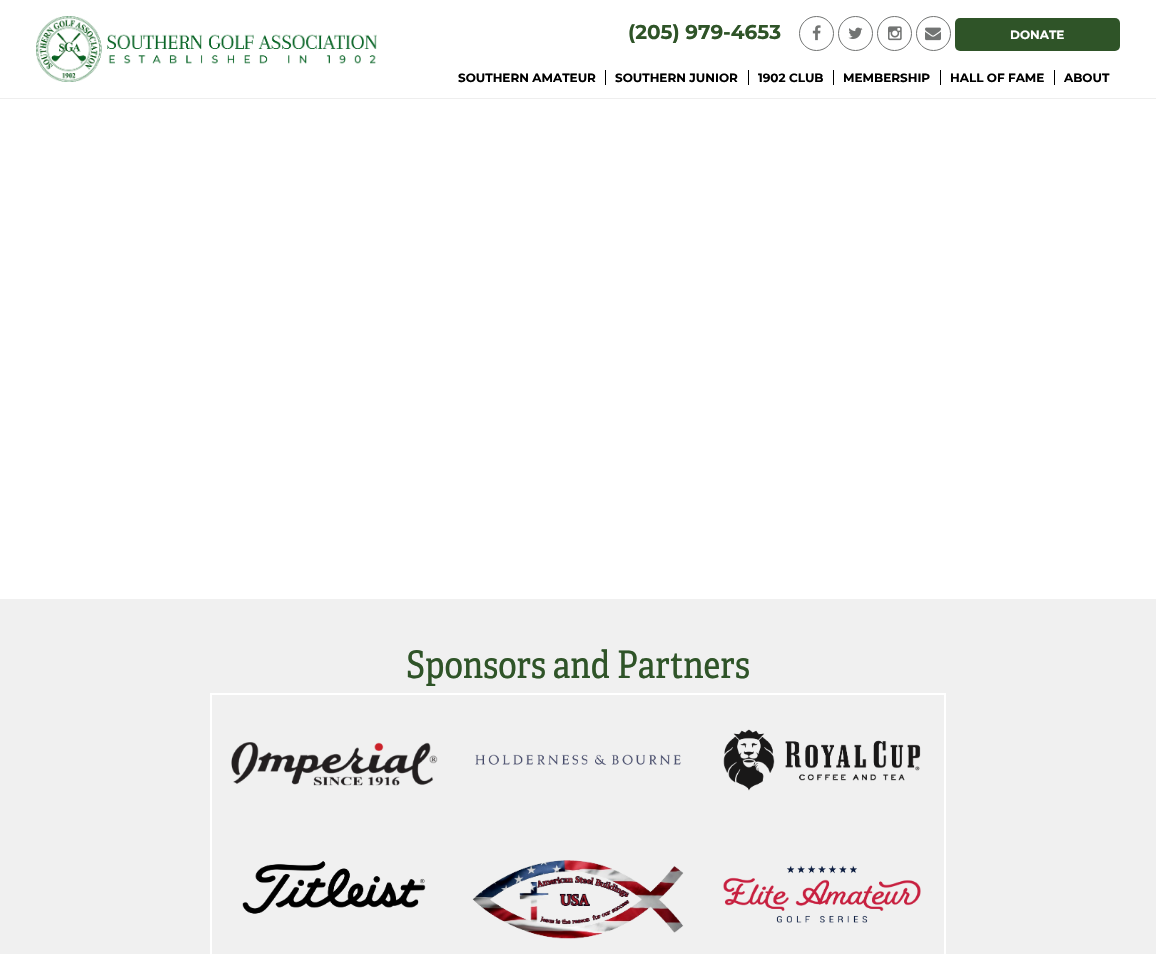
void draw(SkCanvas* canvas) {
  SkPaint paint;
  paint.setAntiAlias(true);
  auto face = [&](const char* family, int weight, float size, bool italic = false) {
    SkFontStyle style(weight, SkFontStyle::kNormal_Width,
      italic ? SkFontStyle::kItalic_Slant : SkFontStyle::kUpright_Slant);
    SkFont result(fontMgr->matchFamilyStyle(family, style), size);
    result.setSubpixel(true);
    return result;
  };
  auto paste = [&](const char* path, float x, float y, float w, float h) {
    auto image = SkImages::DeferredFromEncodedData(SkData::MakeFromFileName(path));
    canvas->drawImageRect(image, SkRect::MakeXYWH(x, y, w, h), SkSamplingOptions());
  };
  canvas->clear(0xffffffff);
  paint.setColor(0xffeeeeee);
  canvas->drawRect(SkRect::MakeXYWH(0, 98, 1156, 1), paint);
  paste("img/1.png", 36, 16, 341, 66);
  paint.setStroke(true);
  paint.setStrokeWidth(1);
  paint.setColor(0xff727473);
  canvas->drawCircle(816.5f, 33.5f, 17, paint);
  paste("img/2.png", 812, 25, 9, 16);
  canvas->drawCircle(855.5f, 33.5f, 17, paint);
  paste("img/3.png", 848, 27, 15, 12);
  canvas->drawCircle(894.5f, 33.5f, 17, paint);
  paste("img/4.png", 888, 26, 14, 15);
  canvas->drawCircle(933.5f, 33.5f, 17, paint);
  paste("img/5.png", 925, 27, 16, 14);
  paint.setStroke(false);
  paint.setColor(0xff2f5428);
  canvas->drawRoundRect(SkRect::MakeXYWH(955, 18, 165, 33), 5, 5, paint);
  {
    const struct { float x, y, w, h; SkColor color; } items[] = {
      {605, 70, 1, 15, 0xff000000},
      {748, 70, 1, 15, 0xff000000},
      {833, 70, 1, 15, 0xff000000},
      {940, 70, 1, 15, 0xff000000},
      {1054, 70, 1, 15, 0xff000000},
      {0, 599, 1156, 355, 0xfff0f0f0},
    };
    for (auto [x, y, w, h, color] : items) {
      paint.setColor(color);
      canvas->drawRect(SkRect::MakeXYWH(x, y, w, h), paint);
    }
  }
  paint.setStroke(true);
  paint.setStrokeWidth(2);
  paint.setColor(0xffffffff);
  canvas->drawRect(SkRect::MakeXYWH(211, 694, 734, 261), paint);
  paste("img/6.png", 231, 742, 207, 44);
  paste("img/7.png", 475, 754, 206, 11);
  paste("img/8.png", 723, 729, 198, 62);
  paste("img/9.png", 242, 861, 184, 53);
  paste("img/10.png", 472, 860, 212, 79);
  paste("img/11.png", 723, 865, 198, 58);
  auto f0 = face("Montserrat", 700, 20);
  paint.setStroke(false);
  paint.setColor(0xff2f5428);
  canvas->drawString("(205) 979-4653", 628, 39, f0, paint);
  auto f1 = face("Montserrat", 700, 12);
  paint.setColor(0xffffffff);
  canvas->drawString("DONATE", 1010, 39, f1, paint);
  paint.setColor(0xff000000);
  {
    const struct { const char* s; float x, y; } items[] = {
      {"SOUTHERN AMATEUR", 458, 82},
      {"SOUTHERN JUNIOR", 615, 82},
      {"1902 CLUB", 758, 82},
      {"MEMBERSHIP", 843, 82},
      {"HALL OF FAME", 950, 82},
      {"ABOUT", 1064, 82},
    };
    for (auto [s, x, y] : items) {
      canvas->drawString(s, x, y, f1, paint);
    }
  }
  auto f2 = face("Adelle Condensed", 400, 38);
  paint.setColor(0xff2f5428);
  canvas->drawString("Sponsors and Partners", 406, 678, f2, paint);
}
